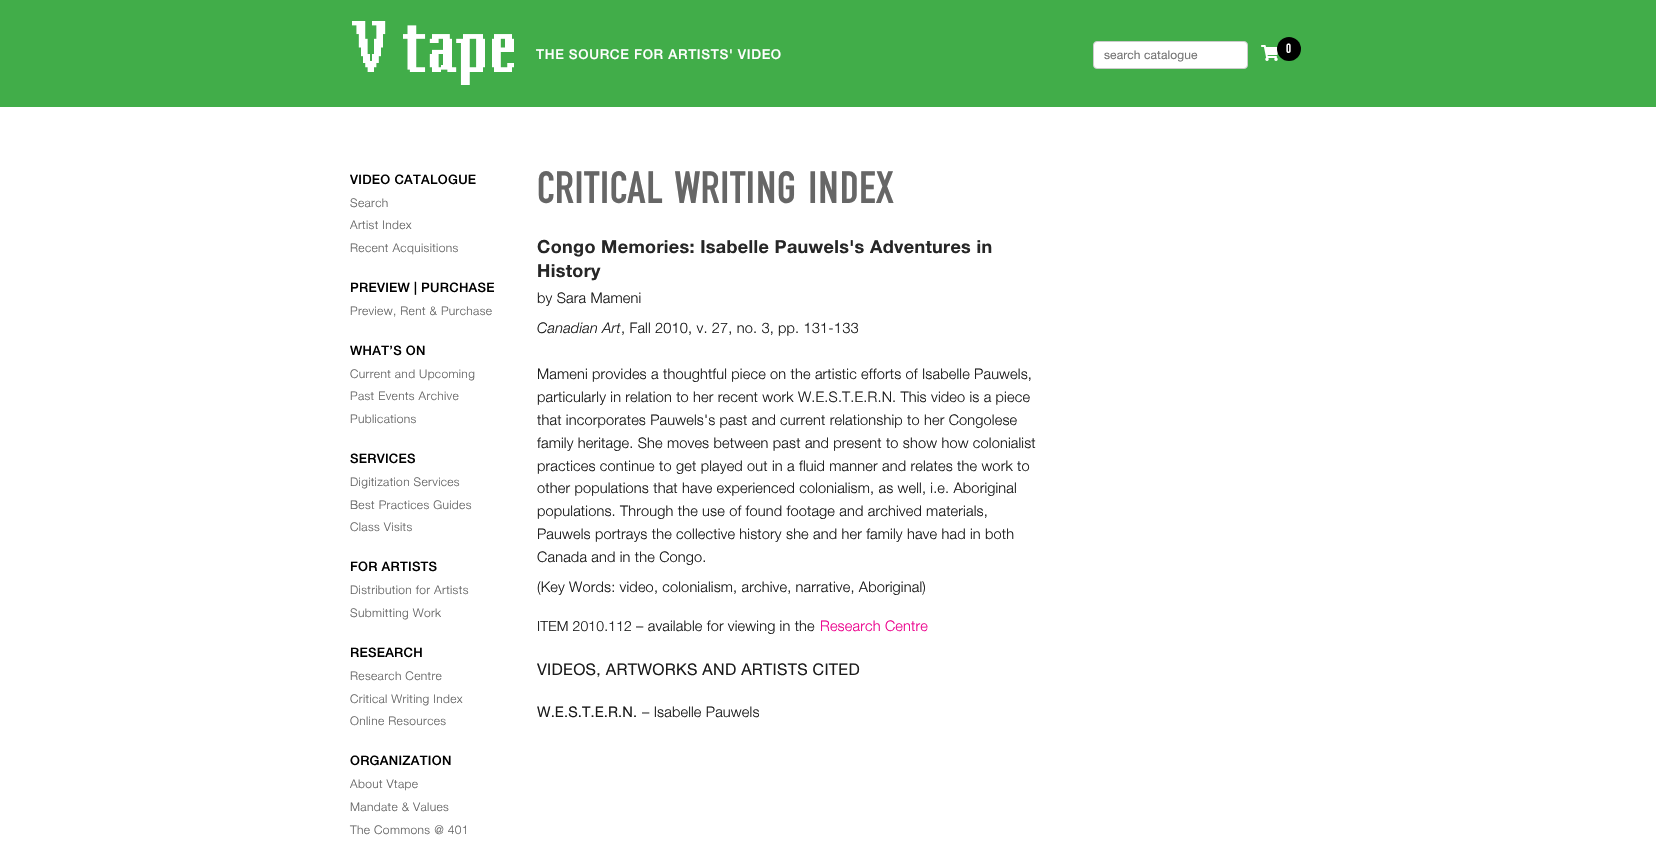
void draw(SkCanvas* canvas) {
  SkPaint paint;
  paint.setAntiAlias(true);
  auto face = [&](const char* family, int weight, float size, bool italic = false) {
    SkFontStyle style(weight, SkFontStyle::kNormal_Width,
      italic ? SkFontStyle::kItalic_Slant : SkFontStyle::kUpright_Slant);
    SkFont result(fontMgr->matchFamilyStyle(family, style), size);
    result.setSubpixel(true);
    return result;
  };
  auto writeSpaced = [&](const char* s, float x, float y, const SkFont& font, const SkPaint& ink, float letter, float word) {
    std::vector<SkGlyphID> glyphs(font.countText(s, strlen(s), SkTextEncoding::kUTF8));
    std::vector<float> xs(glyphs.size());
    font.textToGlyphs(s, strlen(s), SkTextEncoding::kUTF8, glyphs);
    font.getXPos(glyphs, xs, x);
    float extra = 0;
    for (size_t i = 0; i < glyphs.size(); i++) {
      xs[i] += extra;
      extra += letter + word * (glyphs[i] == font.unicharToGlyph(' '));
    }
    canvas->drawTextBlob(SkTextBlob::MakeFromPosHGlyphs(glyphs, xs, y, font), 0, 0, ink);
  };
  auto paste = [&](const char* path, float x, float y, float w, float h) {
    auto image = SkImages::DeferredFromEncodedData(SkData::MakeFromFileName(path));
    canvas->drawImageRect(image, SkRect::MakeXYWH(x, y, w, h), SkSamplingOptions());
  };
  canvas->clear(0xffffffff);
  paint.setColor(0xff41ad49);
  canvas->drawRect(SkRect::MakeXYWH(0, 0, 1656, 107), paint);
  paste("img/1.png", 352, 21, 162, 64);
  paste("img/2.png", 1261, 45, 17, 16);
  paint.setColor(0xff000000);
  canvas->drawCircle(1289, 49, 12, paint);
  paint.setColor(0xffffffff);
  canvas->drawRoundRect(SkRect::MakeXYWH(1093.5f, 41.5f, 154, 27), 3.5f, 3.5f, paint);
  paint.setStroke(true);
  paint.setStrokeWidth(1);
  paint.setColor(0xffcccccc);
  canvas->drawRoundRect(SkRect::MakeXYWH(1093.5f, 41.5f, 154, 27), 3.5f, 3.5f, paint);
  auto f0 = face("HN", 500, 13.5f);
  paint.setStroke(false);
  paint.setColor(0xffffffff);
  writeSpaced("THE SOURCE FOR ARTISTS' VIDEO", 536, 59, f0, paint, 0.7f, 0);
  auto f1 = face("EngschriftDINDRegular", 400, 13);
  writeSpaced("0", 1286, 53, f1, paint, 0.15f, 0);
  auto f2 = face("HN", 400, 12);
  paint.setColor(0xff757575);
  writeSpaced("search catalogue", 1104, 59, f2, paint, 0.1f, 0);
  auto f3 = face("HN", 500, 13);
  paint.setColor(0xff000000);
  writeSpaced("VIDEO CATALOGUE", 350, 184, f3, paint, 0.3f, 0);
  auto f4 = face("HN", 300, 12);
  paint.setColor(0xff666666);
  {
    const struct { const char* s; float x, y; } items[] = {
      {"Search", 350, 207},
      {"Artist Index", 350, 229},
      {"Recent Acquisitions", 350, 252},
    };
    for (auto [s, x, y] : items) {
      writeSpaced(s, x, y, f4, paint, 0.35f, 0);
    }
  }
  paint.setColor(0xff000000);
  writeSpaced("PREVIEW | PURCHASE", 350, 292, f3, paint, 0.3f, 0);
  paint.setColor(0xff666666);
  writeSpaced("Preview, Rent & Purchase", 350, 315, f4, paint, 0.35f, 0);
  paint.setColor(0xff000000);
  writeSpaced("WHAT’S ON", 350, 355, f3, paint, 0.3f, 0);
  paint.setColor(0xff666666);
  {
    const struct { const char* s; float x, y; } items[] = {
      {"Current and Upcoming", 350, 378},
      {"Past Events Archive", 350, 400},
      {"Publications", 350, 423},
    };
    for (auto [s, x, y] : items) {
      writeSpaced(s, x, y, f4, paint, 0.35f, 0);
    }
  }
  paint.setColor(0xff000000);
  writeSpaced("SERVICES", 350, 463, f3, paint, 0.3f, 0);
  paint.setColor(0xff666666);
  {
    const struct { const char* s; float x, y; } items[] = {
      {"Digitization Services", 350, 486},
      {"Best Practices Guides", 350, 509},
      {"Class Visits", 350, 531},
    };
    for (auto [s, x, y] : items) {
      writeSpaced(s, x, y, f4, paint, 0.35f, 0);
    }
  }
  paint.setColor(0xff000000);
  writeSpaced("FOR ARTISTS", 350, 571, f3, paint, 0.3f, 0);
  paint.setColor(0xff666666);
  writeSpaced("Distribution for Artists", 350, 594, f4, paint, 0.35f, 0);
  writeSpaced("Submitting Work", 350, 617, f4, paint, 0.35f, 0);
  paint.setColor(0xff000000);
  writeSpaced("RESEARCH", 350, 657, f3, paint, 0.3f, 0);
  paint.setColor(0xff666666);
  {
    const struct { const char* s; float x, y; } items[] = {
      {"Research Centre", 350, 680},
      {"Critical Writing Index", 350, 703},
      {"Online Resources", 350, 725},
    };
    for (auto [s, x, y] : items) {
      writeSpaced(s, x, y, f4, paint, 0.35f, 0);
    }
  }
  paint.setColor(0xff000000);
  writeSpaced("ORGANIZATION", 350, 765, f3, paint, 0.3f, 0);
  paint.setColor(0xff666666);
  {
    const struct { const char* s; float x, y; } items[] = {
      {"About Vtape", 350, 788},
      {"Mandate & Values", 350, 811},
      {"The Commons @ 401", 350, 834},
    };
    for (auto [s, x, y] : items) {
      writeSpaced(s, x, y, f4, paint, 0.35f, 0);
    }
  }
  auto f5 = face("EngschriftDINDRegular", 400, 44);
  {
    const struct { const char* s; float x, y; } items[] = {
      {"CRITICAL", 537, 203},
      {"WRITING", 675, 203},
      {"INDEX", 808, 203},
    };
    for (auto [s, x, y] : items) {
      writeSpaced(s, x, y, f5, paint, 0.5f, 0);
    }
  }
  auto f6 = face("HN", 700, 18);
  paint.setColor(0xff262626);
  writeSpaced("Congo Memories: Isabelle Pauwels's Adventures in", 537, 253, f6, paint, 0.35f, 0);
  writeSpaced("History", 537, 277, f6, paint, 0.35f, 0);
  auto f7 = face("HN", 300, 14.6f);
  paint.setColor(0xff1b1b1b);
  writeSpaced("by Sara Mameni", 537, 303, f7, paint, 0.15f, 0);
  auto f8 = face("HN", 300, 14.6f, true);
  writeSpaced("Canadian Art", 537, 333, f8, paint, 0.15f, 0);
  {
    const struct { const char* s; float x, y; } items[] = {
      {", Fall 2010, v. 27, no. 3, pp. 131-133", 621, 333},
      {"Mameni provides a thoughtful piece on the artistic efforts of Isabelle Pauwels,", 537, 379},
      {"particularly in relation to her recent work W.E.S.T.E.R.N. This video is a piece", 537, 402},
      {"that incorporates Pauwels's past and current relationship to her Congolese", 537, 425},
      {"family heritage. She moves between past and present to show how colonialist", 537, 448},
      {"practices continue to get played out in a fluid manner and relates the work to", 537, 471},
      {"other populations that have experienced colonialism, as well, i.e. Aboriginal", 537, 493},
      {"populations. Through the use of found footage and archived materials,", 537, 516},
      {"Pauwels portrays the collective history she and her family have had in both", 537, 539},
      {"Canada and in the Congo.", 537, 562},
      {"(Key Words: video, colonialism, archive, narrative, Aboriginal)", 537, 592},
    };
    for (auto [s, x, y] : items) {
      writeSpaced(s, x, y, f7, paint, 0.15f, 0);
    }
  }
  auto f9 = face("HN", 300, 14);
  writeSpaced("ITEM 2010.112", 537, 631, f9, paint, 0.15f, 0);
  writeSpaced("– available for viewing in the", 636, 631, f7, paint, 0.15f, 0);
  paint.setColor(0xffec008c);
  writeSpaced("Research Centre", 820, 631, f7, paint, 0.15f, 0);
  auto f10 = face("HN", 400, 16);
  paint.setColor(0xff1b1b1b);
  writeSpaced("VIDEOS, ARTWORKS AND ARTISTS CITED", 537, 675, f10, paint, 0.3f, 0);
  auto f11 = face("HN", 400, 14.6f);
  writeSpaced("W.E.S.T.E.R.N.", 537, 717, f11, paint, 0.15f, 0);
  writeSpaced("– Isabelle Pauwels", 642, 717, f7, paint, 0.15f, 0);
}
